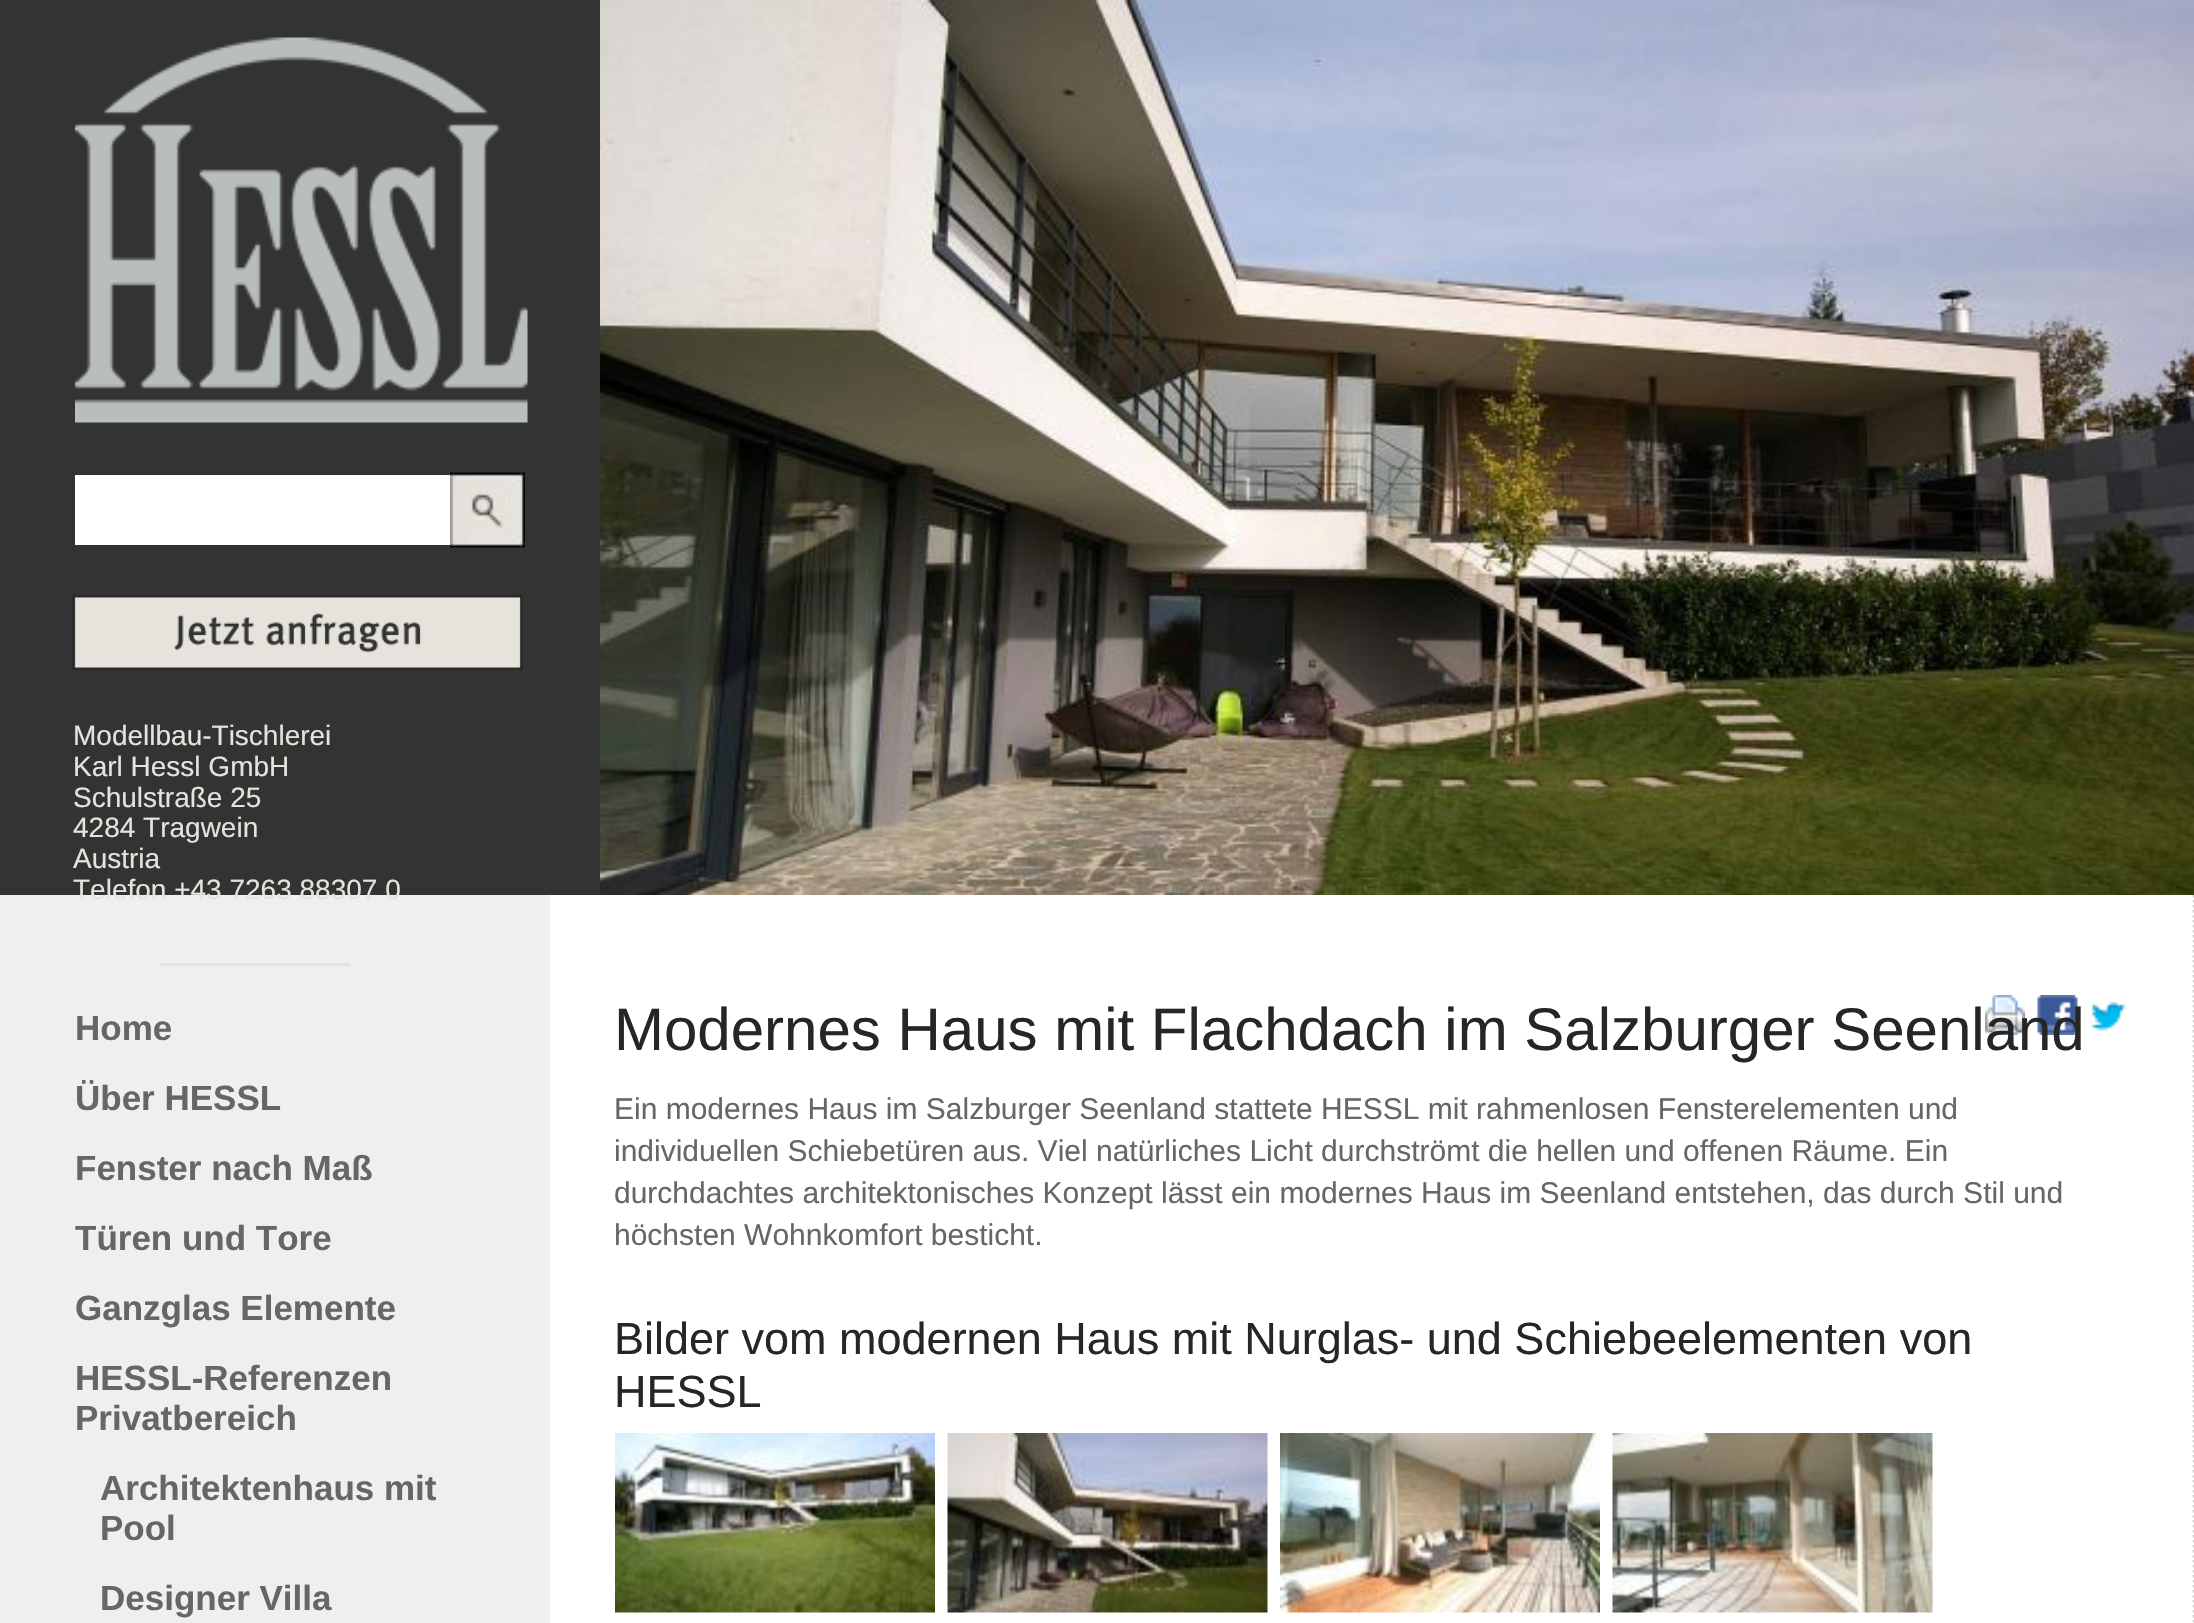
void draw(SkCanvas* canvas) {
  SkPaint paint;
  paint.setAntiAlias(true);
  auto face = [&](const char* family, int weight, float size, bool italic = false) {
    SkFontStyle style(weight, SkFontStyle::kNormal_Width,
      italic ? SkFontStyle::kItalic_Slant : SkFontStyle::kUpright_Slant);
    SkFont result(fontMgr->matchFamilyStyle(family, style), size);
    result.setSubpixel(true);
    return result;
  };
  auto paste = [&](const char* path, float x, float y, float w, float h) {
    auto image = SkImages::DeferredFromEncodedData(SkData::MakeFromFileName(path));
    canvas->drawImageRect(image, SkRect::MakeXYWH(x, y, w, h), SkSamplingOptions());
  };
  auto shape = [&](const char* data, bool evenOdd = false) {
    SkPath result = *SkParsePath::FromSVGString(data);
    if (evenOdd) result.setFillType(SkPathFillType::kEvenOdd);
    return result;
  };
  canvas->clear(0xff333333);
  paste("img/1.png", 75, 37, 453, 386);
  paste("img/2.png", 600, 0, 1594, 895);
  paint.setColor(0xffffffff);
  canvas->drawRect(SkRect::MakeXYWH(75, 475, 375, 70), paint);
  paste("img/3.png", 450, 472, 75, 76);
  paste("img/4.png", 72, 595, 451, 75);
  paste("img/5.png", 0, 895, 550, 728);
  paint.setColor(0xffe5e3db);
  canvas->drawRect(SkRect::MakeXYWH(160, 963, 190, 3), paint);
  paint.setColor(0xffffffff);
  canvas->drawRect(SkRect::MakeXYWH(550, 895, 1644, 728), paint);
  paint.setStroke(true);
  paint.setStrokeWidth(2.5f);
  paint.setColor(0xffcccccc);
  paint.setPathEffect(SkDashPathEffect::Make({{2.5f, 2.5f}}, 0));
  canvas->drawPath(shape("M2194 895V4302.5"), paint);
  paint.setPathEffect(nullptr);
  paste("img/6.png", 1985, 995, 40, 40);
  paste("img/7.png", 2037, 995, 41, 40);
  paste("img/8.png", 2091, 1001, 35, 30);
  paste("img/9.png", 615, 1433, 320, 180);
  paste("img/10.png", 947, 1433, 321, 180);
  paste("img/11.png", 1280, 1433, 320, 180);
  paste("img/12.png", 1612, 1433, 321, 180);
  auto f0 = face("Liberation Sans", 400, 28);
  paint.setStroke(false);
  paint.setColor(0xffe5e3db);
  {
    const struct { const char* s; float x, y; } items[] = {
      {"Modellbau-Tischlerei", 73, 745},
      {"Karl Hessl GmbH", 73, 776},
      {"Schulstraße 25", 73, 807},
      {"4284 Tragwein", 73, 837},
      {"Austria", 73, 868},
      {"Telefon +43 7263 88307 0", 73, 899},
    };
    for (auto [s, x, y] : items) {
      canvas->drawString(s, x, y, f0, paint);
    }
  }
  auto f1 = face("Liberation Sans", 700, 35);
  paint.setColor(0xff666666);
  {
    const struct { const char* s; float x, y; } items[] = {
      {"Home", 75, 1040},
      {"Über HESSL", 75, 1110},
      {"Fenster nach Maß", 75, 1180},
      {"Türen und Tore", 75, 1250},
      {"Ganzglas Elemente", 75, 1320},
      {"HESSL-Referenzen", 75, 1390},
      {"Privatbereich", 75, 1430},
      {"Architektenhaus mit", 100, 1500},
      {"Pool", 100, 1540},
      {"Designer Villa", 100, 1610},
    };
    for (auto [s, x, y] : items) {
      canvas->drawString(s, x, y, f1, paint);
    }
  }
  auto f2 = face("Liberation Sans", 400, 60);
  paint.setColor(0xff262626);
  canvas->drawString("Modernes Haus mit Flachdach im Salzburger Seenland", 614, 1050, f2, paint);
  auto f3 = face("Liberation Sans", 400, 30);
  paint.setColor(0xff666666);
  {
    const struct { const char* s; float x, y; } items[] = {
      {"Ein modernes Haus im Salzburger Seenland stattete HESSL mit rahmenlosen Fensterelementen und", 614, 1119},
      {"individuellen Schiebetüren aus. Viel natürliches Licht durchströmt die hellen und offenen Räume. Ein", 614, 1161},
      {"durchdachtes architektonisches Konzept lässt ein modernes Haus im Seenland entstehen, das durch Stil und", 614, 1203},
      {"höchsten Wohnkomfort besticht.", 614, 1245},
    };
    for (auto [s, x, y] : items) {
      canvas->drawString(s, x, y, f3, paint);
    }
  }
  auto f4 = face("Liberation Sans", 400, 45);
  paint.setColor(0xff262626);
  canvas->drawString("Bilder vom modernen Haus mit Nurglas- und Schiebeelementen von", 614, 1354, f4, paint);
  canvas->drawString("HESSL", 614, 1407, f4, paint);
}
